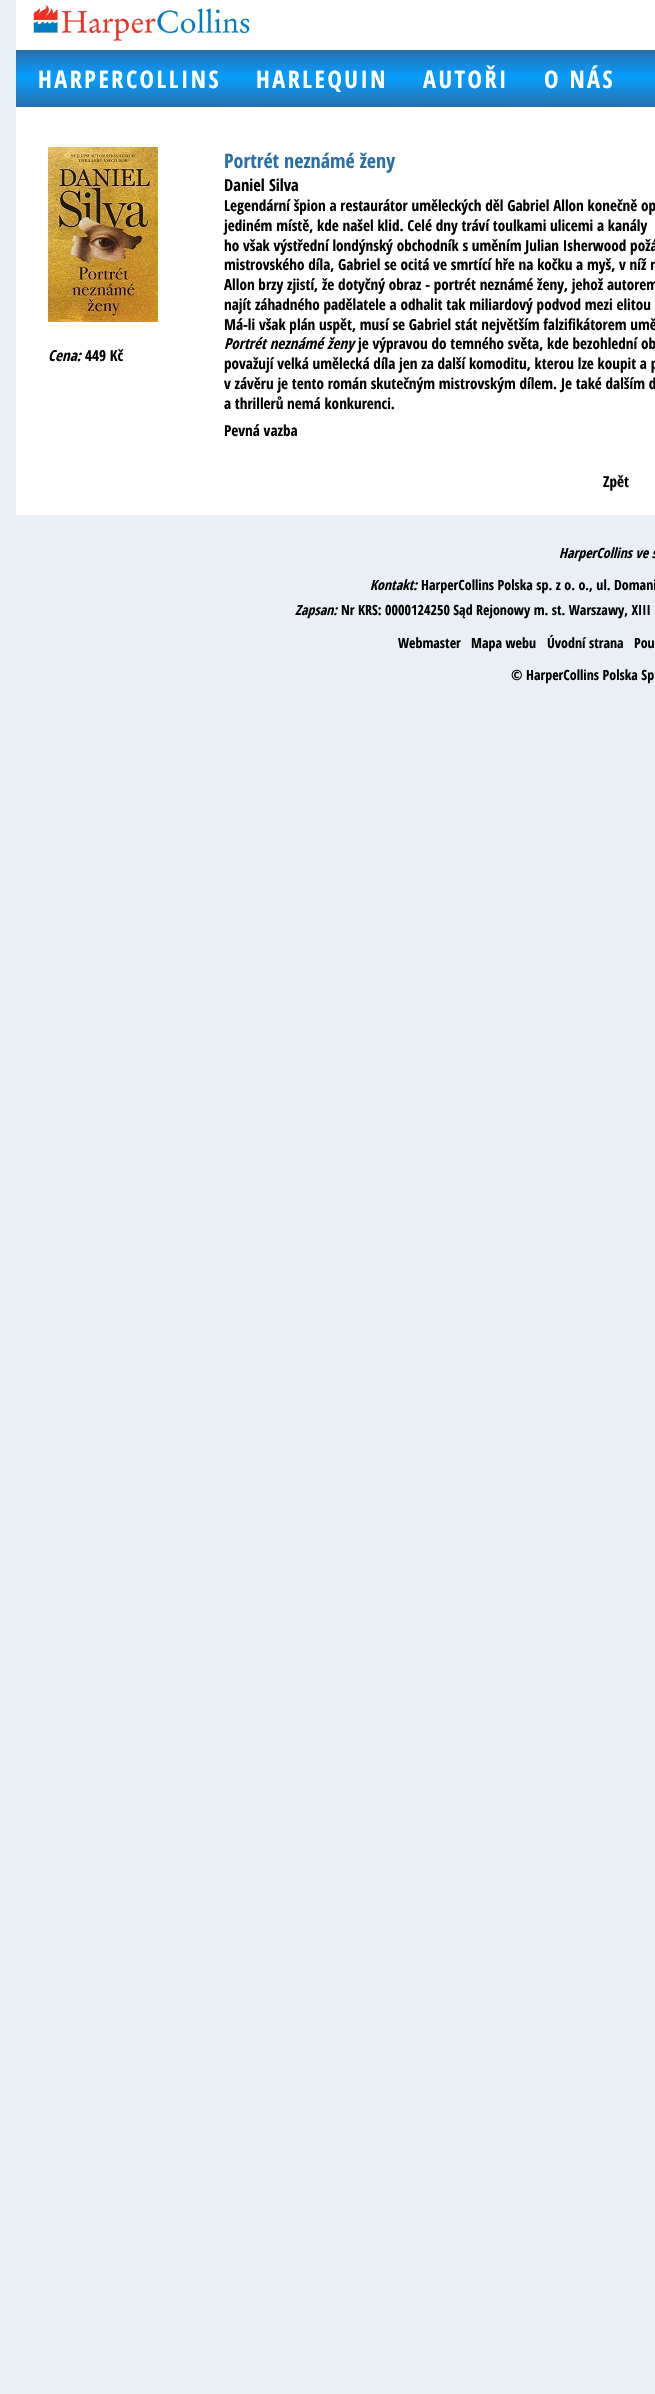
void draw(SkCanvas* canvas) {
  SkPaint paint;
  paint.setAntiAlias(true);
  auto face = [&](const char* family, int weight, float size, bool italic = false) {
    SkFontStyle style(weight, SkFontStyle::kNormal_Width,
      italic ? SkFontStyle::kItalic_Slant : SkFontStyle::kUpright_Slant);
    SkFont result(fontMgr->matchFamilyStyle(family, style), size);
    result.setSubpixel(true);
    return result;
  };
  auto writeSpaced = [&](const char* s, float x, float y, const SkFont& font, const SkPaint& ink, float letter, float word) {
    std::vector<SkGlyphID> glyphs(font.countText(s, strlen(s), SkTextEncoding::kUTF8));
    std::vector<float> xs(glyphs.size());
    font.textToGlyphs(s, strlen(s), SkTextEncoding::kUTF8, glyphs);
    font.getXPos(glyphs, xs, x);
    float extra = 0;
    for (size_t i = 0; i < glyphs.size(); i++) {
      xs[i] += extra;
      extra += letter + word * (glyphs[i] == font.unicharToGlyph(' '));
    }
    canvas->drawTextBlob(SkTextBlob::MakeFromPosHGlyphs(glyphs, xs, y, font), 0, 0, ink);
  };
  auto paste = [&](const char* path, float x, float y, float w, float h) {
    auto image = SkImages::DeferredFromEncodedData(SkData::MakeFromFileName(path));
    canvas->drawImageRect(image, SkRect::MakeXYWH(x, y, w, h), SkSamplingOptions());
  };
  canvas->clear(0xffe9eff5);
  paint.setColor(0xffffffff);
  canvas->drawRect(SkRect::MakeXYWH(16, 0, 639, 515), paint);
  paste("img/1.png", 33, 5, 219, 36);
  {
    const SkColor colors[] = {0xff2970ab, 0xff059eff, 0xff2970ab};
    const float stops[] = {0, 0.47f, 1};
    const SkPoint ends[] = {{616, 50}, {616, 107}};
    paint.setShader(SkGradientShader::MakeLinear(ends, colors, stops, 3, SkTileMode::kClamp));
    paint.setAlpha(255);
  }
  canvas->drawRect(SkRect::MakeXYWH(16, 50, 639, 57), paint);
  paint.setShader(nullptr);
  {
    const struct { float x, y, w, h; SkColor color; } items[] = {
      {28, 105, 202, 1, 0xff2970ab},
      {246, 105, 151, 1, 0xff2970ab},
      {413, 105, 105, 1, 0xff2970ab},
      {534, 105, 90, 1, 0xff2970ab},
    };
    for (auto [x, y, w, h, color] : items) {
      paint.setColor(color);
      canvas->drawRect(SkRect::MakeXYWH(x, y, w, h), paint);
    }
  }
  paste("img/2.png", 48, 147, 110, 175);
  auto f0 = face("Open Sans Condensed", 700, 24.25f);
  paint.setColor(0xffffffff);
  {
    const struct { const char* s; float x, y; } items[] = {
      {"HARPERCOLLINS", 38, 88},
      {"HARLEQUIN", 256, 88},
      {"AUTOŘI", 423, 88},
      {"O NÁS", 544, 88},
    };
    for (auto [s, x, y] : items) {
      writeSpaced(s, x, y, f0, paint, 2.5f, 0);
    }
  }
  auto f1 = face("Open Sans Condensed", 700, 20);
  paint.setColor(0xff2970ab);
  canvas->drawString("Portrét neznámé ženy", 224, 168, f1, paint);
  auto f2 = face("Open Sans Condensed", 700, 16.5f);
  paint.setColor(0xff000000);
  canvas->drawString("Daniel Silva", 224, 191, f2, paint);
  auto f3 = face("Open Sans Condensed", 700, 15.2f);
  {
    const struct { const char* s; float x, y; } items[] = {
      {"Legendární špion a restaurátor uměleckých děl Gabriel Allon konečně op", 224, 211},
      {"jediném místě, kde našel klid. Celé dny tráví toulkami ulicemi a kanály", 224, 231},
      {"ho však výstřední londýnský obchodník s uměním Julian Isherwood požá", 224, 251},
      {"mistrovského díla, Gabriel se ocitá ve smrtící hře na kočku a myš, v níž n", 224, 270},
      {"Allon brzy zjistí, že dotyčný obraz - portrét neznámé ženy, jehož autorem", 224, 290},
      {"najít záhadného padělatele a odhalit tak miliardový podvod mezi elitou", 224, 310},
      {"Má-li však plán uspět, musí se Gabriel stát největším falzifikátorem umě", 224, 330},
    };
    for (auto [s, x, y] : items) {
      canvas->drawString(s, x, y, f3, paint);
    }
  }
  auto f4 = face("Open Sans Condensed", 700, 15.2f, true);
  canvas->drawString("Portrét neznámé ženy", 224, 349, f4, paint);
  {
    const struct { const char* s; float x, y; } items[] = {
      {"je výpravou do temného světa, kde bezohlední ob", 358, 349},
      {"považují velká umělecká díla jen za další komoditu, kterou lze koupit a p", 224, 369},
      {"v závěru je tento román skutečným mistrovským dílem. Je také dalším d", 224, 389},
      {"a thrillerů nemá konkurenci.", 224, 409},
      {"Pevná vazba", 224, 436},
    };
    for (auto [s, x, y] : items) {
      canvas->drawString(s, x, y, f3, paint);
    }
  }
  canvas->drawString("Cena:", 48, 361, f4, paint);
  canvas->drawString("449 Kč", 85, 361, f3, paint);
  canvas->drawString("Zpět", 603, 487, f3, paint);
  auto f5 = face("Open Sans Condensed", 700, 14, true);
  canvas->drawString("HarperCollins ve s", 559, 558, f5, paint);
  canvas->drawString("Kontakt:", 370, 590, f5, paint);
  auto f6 = face("Open Sans Condensed", 700, 14);
  canvas->drawString("HarperCollins Polska sp. z o. o., ul. Domani", 421, 590, f6, paint);
  canvas->drawString("Zapsan:", 295, 615, f5, paint);
  {
    const struct { const char* s; float x, y; } items[] = {
      {"Nr KRS: 0000124250 Sąd Rejonowy m. st. Warszawy, XIII", 341, 615},
      {"Webmaster", 398, 648},
      {"Mapa webu", 471, 648},
      {"Úvodní strana", 547, 648},
      {"Pou", 634, 648},
      {"© HarperCollins Polska Sp", 511, 680},
    };
    for (auto [s, x, y] : items) {
      canvas->drawString(s, x, y, f6, paint);
    }
  }
}
